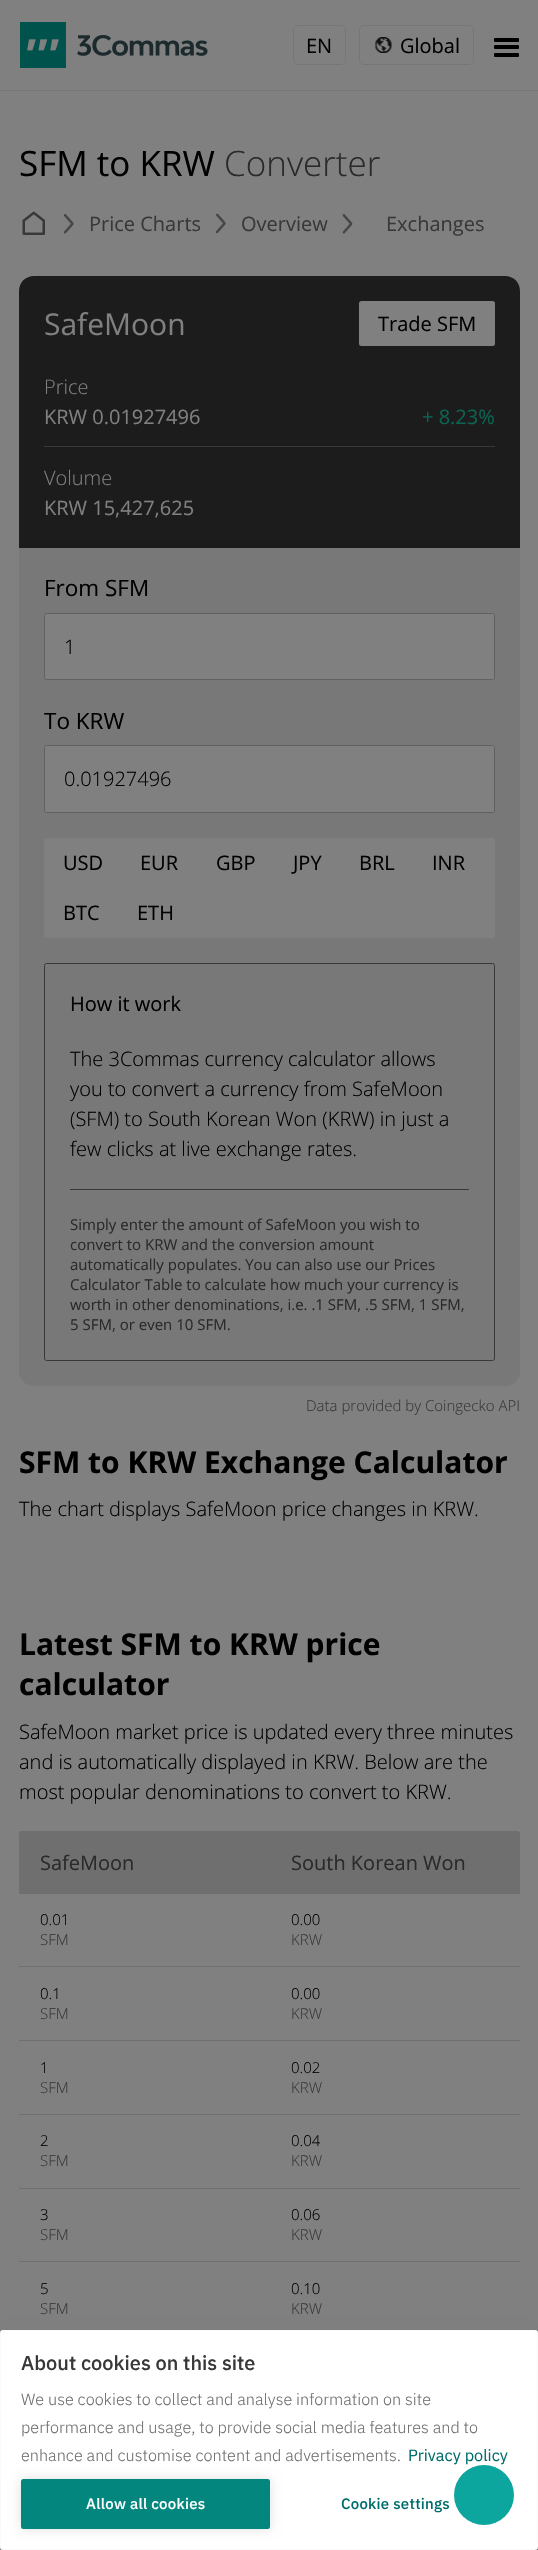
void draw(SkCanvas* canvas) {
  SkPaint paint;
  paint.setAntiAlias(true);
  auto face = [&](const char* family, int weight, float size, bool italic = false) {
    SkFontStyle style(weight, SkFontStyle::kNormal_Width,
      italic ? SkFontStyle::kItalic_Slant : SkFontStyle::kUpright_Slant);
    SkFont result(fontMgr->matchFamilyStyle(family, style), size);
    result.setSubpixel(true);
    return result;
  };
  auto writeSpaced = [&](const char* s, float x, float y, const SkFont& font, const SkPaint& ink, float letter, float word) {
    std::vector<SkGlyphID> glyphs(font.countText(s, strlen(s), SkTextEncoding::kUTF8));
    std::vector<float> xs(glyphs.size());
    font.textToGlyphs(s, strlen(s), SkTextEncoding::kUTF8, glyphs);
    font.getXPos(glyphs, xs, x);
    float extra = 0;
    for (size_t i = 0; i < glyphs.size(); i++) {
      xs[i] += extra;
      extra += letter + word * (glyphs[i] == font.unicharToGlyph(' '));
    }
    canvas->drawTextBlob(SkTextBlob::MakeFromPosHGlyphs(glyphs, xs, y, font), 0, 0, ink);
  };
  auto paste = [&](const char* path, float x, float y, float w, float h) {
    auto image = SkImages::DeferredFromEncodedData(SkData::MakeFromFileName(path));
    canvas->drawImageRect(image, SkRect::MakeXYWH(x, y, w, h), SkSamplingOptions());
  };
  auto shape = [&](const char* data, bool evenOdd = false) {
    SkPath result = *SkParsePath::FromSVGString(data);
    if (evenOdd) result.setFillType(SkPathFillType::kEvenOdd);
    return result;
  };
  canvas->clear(0xff808080);
  paint.setColor(0xff747779);
  canvas->drawRect(SkRect::MakeXYWH(0, 90, 538, 1), paint);
  paste("img/1.png", 20, 22, 188, 46);
  paint.setStroke(true);
  paint.setStrokeWidth(1);
  canvas->drawRoundRect(SkRect::MakeXYWH(293.5f, 25.5f, 52, 39), 4.5f, 4.5f, paint);
  canvas->drawRoundRect(SkRect::MakeXYWH(359.5f, 25.5f, 114, 39), 4.5f, 4.5f, paint);
  paste("img/2.png", 375, 37, 17, 16);
  paint.setStroke(false);
  paint.setColor(0xff000000);
  canvas->drawRoundRect(SkRect::MakeXYWH(494, 38, 25, 4), 1, 1, paint);
  canvas->drawRoundRect(SkRect::MakeXYWH(494, 45, 25, 4), 1, 1, paint);
  canvas->drawRoundRect(SkRect::MakeXYWH(494, 53, 25, 4), 1, 1, paint);
  paste("img/3.png", 22, 211, 23, 24);
  paste("img/4.png", 63, 214, 11, 20);
  paste("img/5.png", 216, 213, 10, 21);
  paste("img/6.png", 342, 213, 11, 21);
  paint.setColor(0xff1c1c1c);
  canvas->drawPath(shape("M34 276H505C513.5 276 520 282.5 520 291V548H19V291C19 282.5 25.5 276 34 276Z"), paint);
  paint.setColor(0xff808080);
  canvas->drawRoundRect(SkRect::MakeXYWH(359, 301, 136, 45), 2.5f, 2.5f, paint);
  paint.setColor(0xff383838);
  canvas->drawRect(SkRect::MakeXYWH(44, 446, 451, 1), paint);
  paint.setColor(0xff787878);
  canvas->drawPath(shape("M19 548H520V1371C520 1379.5 513.5 1386 505 1386H34C25.5 1386 19 1379.5 19 1371Z"), paint);
  paint.setColor(0xff808080);
  canvas->drawRoundRect(SkRect::MakeXYWH(44.5f, 613.5f, 450, 66), 2, 2, paint);
  paint.setStroke(true);
  paint.setColor(0xff616161);
  canvas->drawRoundRect(SkRect::MakeXYWH(44.5f, 613.5f, 450, 66), 2, 2, paint);
  paint.setStroke(false);
  paint.setColor(0xff808080);
  canvas->drawRoundRect(SkRect::MakeXYWH(44.5f, 745.5f, 450, 67), 2, 2, paint);
  paint.setStroke(true);
  paint.setColor(0xff616161);
  canvas->drawRoundRect(SkRect::MakeXYWH(44.5f, 745.5f, 450, 67), 2, 2, paint);
  paint.setStroke(false);
  paint.setColor(0xff808080);
  canvas->drawRoundRect(SkRect::MakeXYWH(44, 838, 451, 100), 2.5f, 2.5f, paint);
  paint.setStroke(true);
  paint.setColor(0xff383838);
  canvas->drawRoundRect(SkRect::MakeXYWH(44.5f, 963.5f, 450, 397), 2, 2, paint);
  paint.setStroke(false);
  canvas->drawRect(SkRect::MakeXYWH(70, 1189, 399, 1), paint);
  paint.setColor(0xff6f6f6f);
  canvas->drawPath(shape("M21.5 1831H270V1894H19V1833.5C19 1832 20 1831 21.5 1831Z"), paint);
  canvas->drawPath(shape("M270 1831H517.5C519 1831 520 1832 520 1833.5V1894H270Z"), paint);
  {
    const struct { float x, y, w, h; SkColor color; } items[] = {
      {19, 1966, 501, 1, 0xff6f6f6f},
      {19, 2040, 501, 1, 0xff6f6f6f},
      {19, 2114, 501, 1, 0xff6f6f6f},
      {19, 2188, 501, 1, 0xff6f6f6f},
      {19, 2261, 501, 1, 0xff6f6f6f},
    };
    for (auto [x, y, w, h, color] : items) {
      paint.setColor(color);
      canvas->drawRect(SkRect::MakeXYWH(x, y, w, h), paint);
    }
  }
  paint.setColor(0x1a000000);
  paint.setMaskFilter(SkMaskFilter::MakeBlur(kNormal_SkBlurStyle, 15.5f));
  canvas->drawRect(SkRect::MakeXYWH(6, 2361, 525, 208), paint);
  paint.setMaskFilter(nullptr);
  paint.setColor(0xffffffff);
  canvas->drawRoundRect(SkRect::MakeXYWH(0.5f, 2330.5f, 537, 219), 2, 2, paint);
  paint.setStroke(true);
  paint.setColor(0xfffafafa);
  canvas->drawRoundRect(SkRect::MakeXYWH(0.5f, 2330.5f, 537, 219), 2, 2, paint);
  paint.setStroke(false);
  paint.setColor(0xff0da69e);
  canvas->drawCircle(484, 2495, 30, paint);
  paint.setColor(0x1f000000);
  paint.setMaskFilter(SkMaskFilter::MakeBlur(kNormal_SkBlurStyle, 6));
  canvas->drawRoundRect(SkRect::MakeXYWH(21, 2479, 249, 50), 2.5f, 2.5f, paint);
  paint.setMaskFilter(nullptr);
  paint.setColor(0xff02867d);
  canvas->drawRoundRect(SkRect::MakeXYWH(21, 2479, 249, 50), 2.5f, 2.5f, paint);
  auto f0 = face("Open Sans", 400, 20);
  paint.setColor(0xff000000);
  canvas->drawString("EN", 306, 53, f0, paint);
  canvas->drawString("Global", 400, 53, f0, paint);
  auto f1 = face("Open Sans", 400, 35);
  canvas->drawString("SFM to KRW", 19, 176, f1, paint);
  auto f2 = face("Open Sans", 300, 35);
  paint.setColor(0xff2a2a2a);
  canvas->drawString("Converter", 224, 176, f2, paint);
  paint.setColor(0xff383838);
  {
    const struct { const char* s; float x, y; } items[] = {
      {"Price Charts", 89, 231},
      {"Overview", 241, 231},
      {"Exchanges", 386, 231},
    };
    for (auto [s, x, y] : items) {
      canvas->drawString(s, x, y, f0, paint);
    }
  }
  auto f3 = face("Open Sans", 400, 30);
  paint.setColor(0xff808080);
  canvas->drawString("SafeMoon", 44, 335, f3, paint);
  paint.setColor(0xff000000);
  canvas->drawString("Trade SFM", 378, 331, f0, paint);
  auto f4 = face("Open Sans", 300, 20);
  paint.setColor(0xff808080);
  canvas->drawString("Price", 44, 394, f4, paint);
  canvas->drawString("KRW 0.01927496", 44, 424, f0, paint);
  paint.setColor(0xff0a6452);
  canvas->drawString("+ 8.23%", 422, 424, f0, paint);
  paint.setColor(0xff808080);
  canvas->drawString("Volume", 44, 485, f4, paint);
  canvas->drawString("KRW 15,427,625", 44, 515, f0, paint);
  auto f5 = face("Open Sans", 400, 22.5f);
  paint.setColor(0xff000000);
  canvas->drawString("From SFM", 44, 596, f5, paint);
  canvas->drawString("1", 64, 654, f4, paint);
  canvas->drawString("To KRW", 44, 729, f5, paint);
  canvas->drawString("0.01927496", 64, 786, f4, paint);
  {
    const struct { const char* s; float x, y; } items[] = {
      {"USD", 63, 870},
      {"EUR", 140, 870},
      {"GBP", 216, 870},
      {"JPY", 293, 870},
      {"BRL", 359, 870},
      {"INR", 432, 870},
      {"BTC", 63, 920},
      {"ETH", 137, 920},
      {"How it work", 70, 1011},
    };
    for (auto [s, x, y] : items) {
      canvas->drawString(s, x, y, f0, paint);
    }
  }
  {
    const struct { const char* s; float x, y; } items[] = {
      {"The 3Commas currency calculator allows", 70, 1066},
      {"you to convert a currency from SafeMoon", 70, 1096},
      {"(SFM) to South Korean Won (KRW) in just a", 70, 1126},
      {"few clicks at live exchange rates.", 70, 1156},
    };
    for (auto [s, x, y] : items) {
      canvas->drawString(s, x, y, f4, paint);
    }
  }
  auto f6 = face("Open Sans", 400, 15);
  paint.setColor(0xff2a2a2a);
  {
    const struct { const char* s; float x, y; } items[] = {
      {"Simply enter the amount of SafeMoon you wish to", 70, 1230},
      {"convert to KRW and the conversion amount", 70, 1250},
      {"automatically populates. You can also use our Prices", 70, 1270},
      {"Calculator Table to calculate how much your currency is", 70, 1290},
      {"worth in other denominations, i.e. .1 SFM, .5 SFM, 1 SFM,", 70, 1310},
      {"5 SFM, or even 10 SFM.", 70, 1330},
    };
    for (auto [s, x, y] : items) {
      canvas->drawString(s, x, y, f6, paint);
    }
  }
  auto f7 = face("Open Sans", 300, 15);
  paint.setColor(0xff383838);
  canvas->drawString("Data provided by Coingecko API", 306, 1411, f7, paint);
  auto f8 = face("Open Sans", 700, 30);
  paint.setColor(0xff000000);
  canvas->drawString("SFM to KRW Exchange Calculator", 19, 1473, f8, paint);
  canvas->drawString("The chart displays SafeMoon price changes in KRW.", 19, 1516, f4, paint);
  canvas->drawString("Latest SFM to KRW price", 19, 1655, f8, paint);
  canvas->drawString("calculator", 19, 1695, f8, paint);
  {
    const struct { const char* s; float x, y; } items[] = {
      {"SafeMoon market price is updated every three minutes", 19, 1739},
      {"and is automatically displayed in KRW. Below are the", 19, 1769},
      {"most popular denominations to convert to KRW.", 19, 1799},
    };
    for (auto [s, x, y] : items) {
      canvas->drawString(s, x, y, f4, paint);
    }
  }
  paint.setColor(0xff2a2a2a);
  canvas->drawString("SafeMoon", 40, 1870, f0, paint);
  canvas->drawString("South Korean Won", 291, 1870, f0, paint);
  paint.setColor(0xff000000);
  canvas->drawString("0.01", 40, 1925, f7, paint);
  paint.setColor(0xff383838);
  canvas->drawString("SFM", 40, 1945, f7, paint);
  paint.setColor(0xff000000);
  canvas->drawString("0.00", 291, 1925, f7, paint);
  paint.setColor(0xff383838);
  canvas->drawString("KRW", 291, 1945, f7, paint);
  paint.setColor(0xff000000);
  canvas->drawString("0.1", 40, 1999, f7, paint);
  paint.setColor(0xff383838);
  canvas->drawString("SFM", 40, 2019, f7, paint);
  paint.setColor(0xff000000);
  canvas->drawString("0.00", 291, 1999, f7, paint);
  paint.setColor(0xff383838);
  canvas->drawString("KRW", 291, 2019, f7, paint);
  paint.setColor(0xff000000);
  canvas->drawString("1", 40, 2073, f7, paint);
  paint.setColor(0xff383838);
  canvas->drawString("SFM", 40, 2093, f7, paint);
  paint.setColor(0xff000000);
  canvas->drawString("0.02", 291, 2073, f7, paint);
  paint.setColor(0xff383838);
  canvas->drawString("KRW", 291, 2093, f7, paint);
  paint.setColor(0xff000000);
  canvas->drawString("2", 40, 2146, f7, paint);
  paint.setColor(0xff383838);
  canvas->drawString("SFM", 40, 2166, f7, paint);
  paint.setColor(0xff000000);
  canvas->drawString("0.04", 291, 2146, f7, paint);
  paint.setColor(0xff383838);
  canvas->drawString("KRW", 291, 2166, f7, paint);
  paint.setColor(0xff000000);
  canvas->drawString("3", 40, 2220, f7, paint);
  paint.setColor(0xff383838);
  canvas->drawString("SFM", 40, 2240, f7, paint);
  paint.setColor(0xff000000);
  canvas->drawString("0.06", 291, 2220, f7, paint);
  paint.setColor(0xff383838);
  canvas->drawString("KRW", 291, 2240, f7, paint);
  paint.setColor(0xff000000);
  canvas->drawString("5", 40, 2294, f7, paint);
  paint.setColor(0xff383838);
  canvas->drawString("SFM", 40, 2314, f7, paint);
  paint.setColor(0xff000000);
  canvas->drawString("0.10", 291, 2294, f7, paint);
  paint.setColor(0xff383838);
  canvas->drawString("KRW", 291, 2314, f7, paint);
  auto f9 = face("IBM Plex Sans", 500, 20);
  canvas->drawString("About cookies on this site", 21, 2370, f9, paint);
  auto f10 = face("IBM Plex Sans", 300, 16.25f);
  paint.setColor(0xff707070);
  {
    const struct { const char* s; float x, y; } items[] = {
      {"We use cookies to collect and analyse information on site", 21, 2405},
      {"performance and usage, to provide social media features and to", 21, 2433},
      {"enhance and customise content and advertisements.", 21, 2461},
    };
    for (auto [s, x, y] : items) {
      canvas->drawString(s, x, y, f10, paint);
    }
  }
  auto f11 = face("IBM Plex Sans", 400, 16.25f);
  paint.setColor(0xff006d6d);
  canvas->drawString("Privacy policy", 408, 2461, f11, paint);
  auto f12 = face("IBM Plex Sans", 500, 15);
  paint.setColor(0xffffffff);
  writeSpaced("Allow all cookies", 86, 2509, f12, paint, 0.25f, 0);
  paint.setColor(0xff006d6d);
  writeSpaced("Cookie settings", 341, 2509, f12, paint, 0.25f, 0);
}
